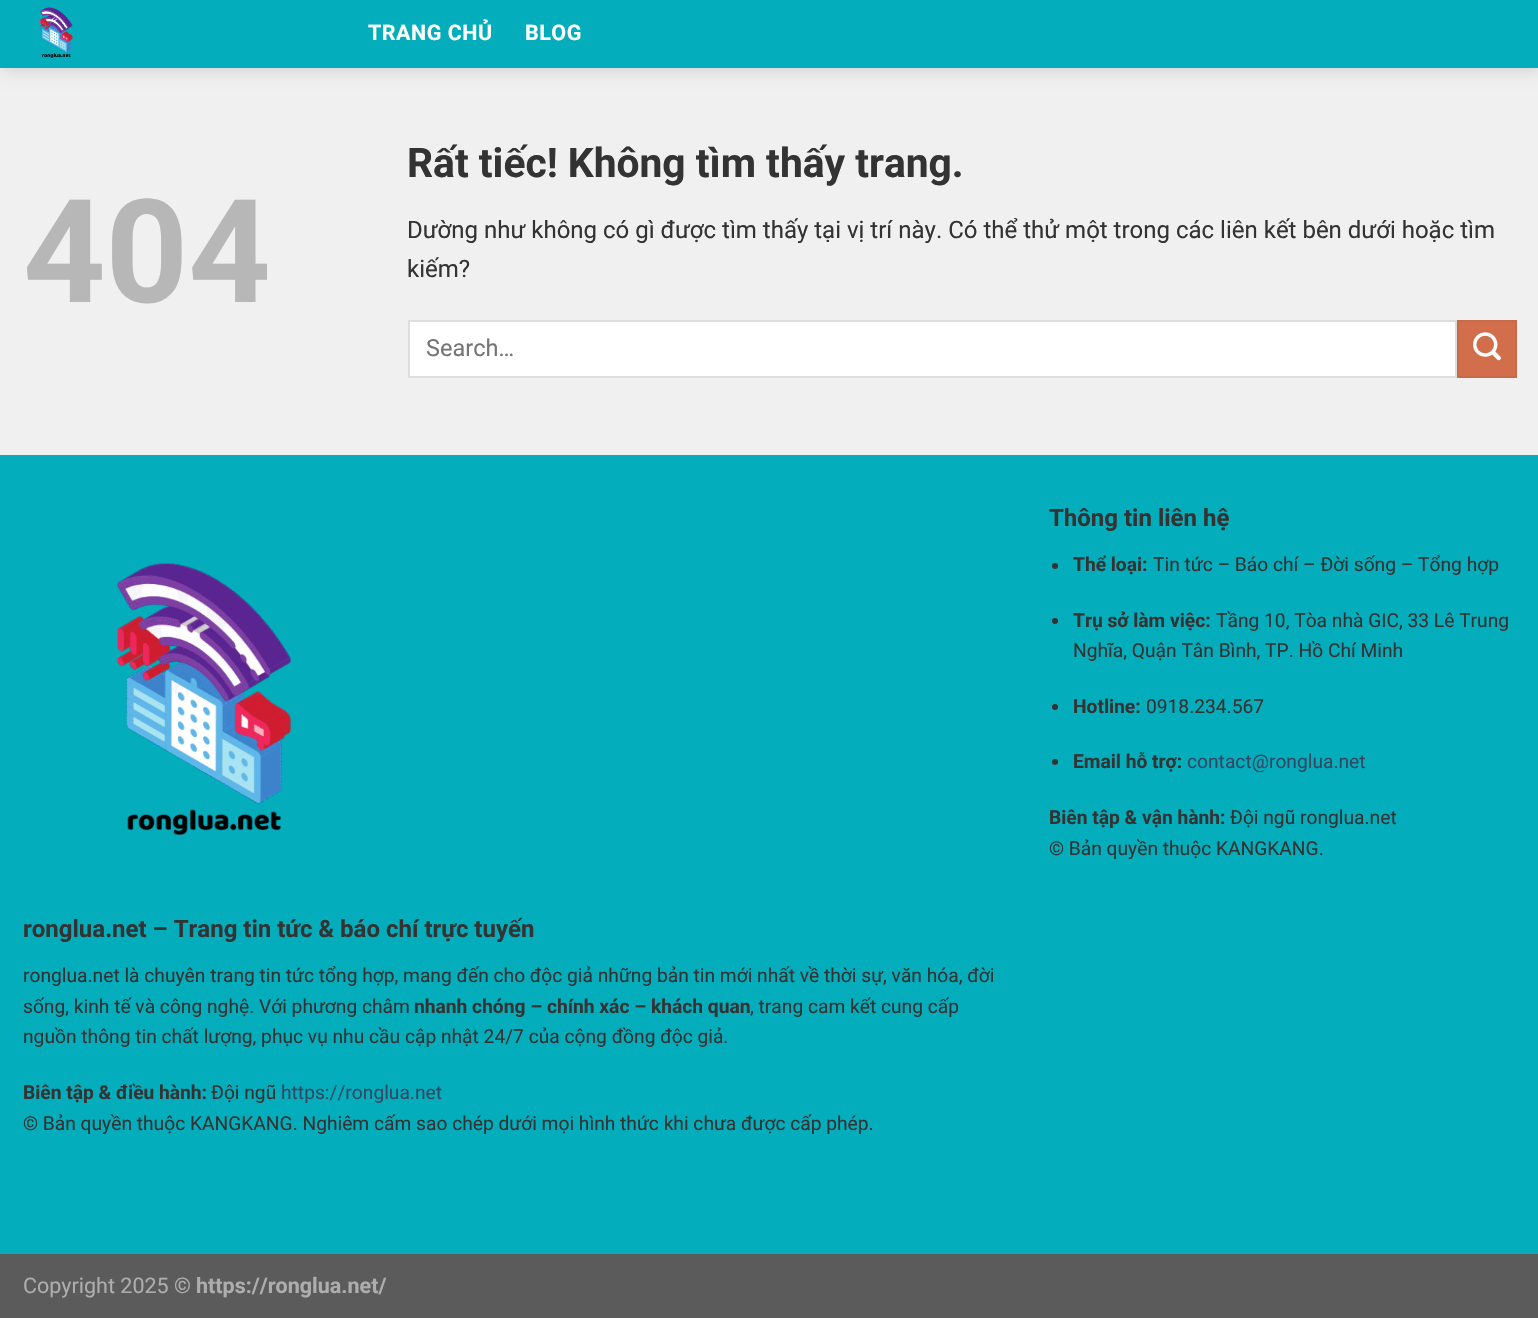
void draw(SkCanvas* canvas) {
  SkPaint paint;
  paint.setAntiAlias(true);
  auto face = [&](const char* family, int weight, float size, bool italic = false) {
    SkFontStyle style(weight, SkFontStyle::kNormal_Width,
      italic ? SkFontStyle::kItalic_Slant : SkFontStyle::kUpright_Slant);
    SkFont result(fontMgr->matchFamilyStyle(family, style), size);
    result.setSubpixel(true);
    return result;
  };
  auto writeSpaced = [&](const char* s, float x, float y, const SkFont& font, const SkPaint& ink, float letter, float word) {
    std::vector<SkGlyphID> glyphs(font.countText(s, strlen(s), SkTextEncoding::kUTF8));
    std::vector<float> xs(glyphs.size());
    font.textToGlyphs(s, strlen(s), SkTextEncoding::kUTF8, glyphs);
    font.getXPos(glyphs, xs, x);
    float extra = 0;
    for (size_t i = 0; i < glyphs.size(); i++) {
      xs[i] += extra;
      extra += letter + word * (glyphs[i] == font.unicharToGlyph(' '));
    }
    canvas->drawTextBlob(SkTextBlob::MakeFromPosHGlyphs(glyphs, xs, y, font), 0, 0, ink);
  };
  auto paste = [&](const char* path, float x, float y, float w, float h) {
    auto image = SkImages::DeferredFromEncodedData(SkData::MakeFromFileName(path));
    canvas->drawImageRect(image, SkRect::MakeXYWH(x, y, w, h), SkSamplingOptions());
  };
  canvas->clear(0xfff0f0f0);
  paint.setColor(0x26000000);
  paint.setMaskFilter(SkMaskFilter::MakeBlur(kNormal_SkBlurStyle, 7.5f));
  canvas->drawRect(SkRect::MakeXYWH(2, 2, 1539, 67), paint);
  paint.setMaskFilter(nullptr);
  paint.setColor(0xff03adbc);
  canvas->drawRect(SkRect::MakeXYWH(0, 0, 1538, 68), paint);
  paste("img/1.png", 40, 7, 33, 51);
  paint.setColor(0xffffffff);
  canvas->drawRect(SkRect::MakeXYWH(409, 321, 1047, 56), paint);
  paint.setStroke(true);
  paint.setStrokeWidth(2);
  paint.setColor(0xffdddddd);
  canvas->drawRect(SkRect::MakeXYWH(409, 321, 1047, 56), paint);
  paint.setStroke(false);
  paint.setColor(0xffd26e4b);
  canvas->drawRect(SkRect::MakeXYWH(1458, 321, 58, 56), paint);
  paint.setStroke(true);
  paint.setColor(0xffc86947);
  canvas->drawRect(SkRect::MakeXYWH(1458, 321, 58, 56), paint);
  paste("img/2.png", 1473, 332, 28, 29);
  paint.setStroke(false);
  paint.setColor(0xff03adbc);
  canvas->drawRect(SkRect::MakeXYWH(0, 455, 1538, 799), paint);
  paint.setColor(0xff333333);
  canvas->drawCircle(1055, 566, 3, paint);
  canvas->drawCircle(1055, 621, 3, paint);
  canvas->drawCircle(1055, 707, 3, paint);
  canvas->drawCircle(1055, 762, 3, paint);
  paste("img/3.png", 117, 563, 174, 273);
  paint.setColor(0xff5b5b5b);
  canvas->drawRect(SkRect::MakeXYWH(0, 1254, 1538, 64), paint);
  auto f0 = face("Roboto", 700, 21.5f);
  paint.setColor(0xffffffff);
  writeSpaced("TRANG CHỦ", 368, 40, f0, paint, 0.5f, 0);
  writeSpaced("BLOG", 525, 40, f0, paint, 0.5f, 0);
  auto f1 = face("Roboto", 700, 144);
  paint.setColor(0xffb7b7b7);
  canvas->drawString("404", 23, 302, f1, paint);
  auto f2 = face("Roboto", 700, 40.75f);
  paint.setColor(0xff333333);
  canvas->drawString("Rất tiếc! Không tìm thấy trang.", 407, 177, f2, paint);
  auto f3 = face("Roboto", 400, 24);
  canvas->drawString("Dường như không có gì được tìm thấy tại vị trí này. Có thể thử một trong các liên kết bên dưới hoặc tìm", 407, 238, f3, paint);
  canvas->drawString("kiếm?", 407, 277, f3, paint);
  auto f4 = face("Roboto", 400, 23.5f);
  paint.setColor(0xff757575);
  canvas->drawString("Search…", 426, 356, f4, paint);
  auto f5 = face("Roboto", 700, 24);
  paint.setColor(0xff333333);
  canvas->drawString("Thông tin liên hệ", 1049, 526, f5, paint);
  auto f6 = face("Roboto", 700, 19.2f);
  canvas->drawString("Thể loại:", 1073, 571, f6, paint);
  auto f7 = face("Roboto", 400, 19.2f);
  canvas->drawString("Tin tức – Báo chí – Đời sống – Tổng hợp", 1153, 571, f7, paint);
  canvas->drawString("Trụ sở làm việc:", 1073, 627, f6, paint);
  canvas->drawString("Tầng 10, Tòa nhà GIC, 33 Lê Trung", 1216, 627, f7, paint);
  canvas->drawString("Nghĩa, Quận Tân Bình, TP. Hồ Chí Minh", 1073, 657, f7, paint);
  canvas->drawString("Hotline:", 1073, 713, f6, paint);
  canvas->drawString("0918.234.567", 1146, 713, f7, paint);
  canvas->drawString("Email hỗ trợ:", 1073, 768, f6, paint);
  paint.setColor(0xff334862);
  canvas->drawString("contact@ronglua.net", 1187, 768, f7, paint);
  paint.setColor(0xff333333);
  canvas->drawString("Biên tập & vận hành:", 1049, 824, f6, paint);
  canvas->drawString("Đội ngũ ronglua.net", 1230, 824, f7, paint);
  canvas->drawString("© Bản quyền thuộc KANGKANG.", 1049, 855, f7, paint);
  canvas->drawString("ronglua.net – Trang tin tức & báo chí trực tuyến", 23, 937, f5, paint);
  canvas->drawString("ronglua.net là chuyên trang tin tức tổng hợp, mang đến cho độc giả những bản tin mới nhất về thời sự, văn hóa, đời", 23, 982, f7, paint);
  canvas->drawString("sống, kinh tế và công nghệ. Với phương châm", 23, 1013, f7, paint);
  canvas->drawString("nhanh chóng – chính xác – khách quan", 414, 1013, f6, paint);
  canvas->drawString(", trang cam kết cung cấp", 750, 1013, f7, paint);
  canvas->drawString("nguồn thông tin chất lượng, phục vụ nhu cầu cập nhật 24/7 của cộng đồng độc giả.", 23, 1043, f7, paint);
  canvas->drawString("Biên tập & điều hành:", 23, 1099, f6, paint);
  canvas->drawString("Đội ngũ", 211, 1099, f7, paint);
  paint.setColor(0xff334862);
  canvas->drawString("https://ronglua.net", 281, 1099, f7, paint);
  paint.setColor(0xff333333);
  canvas->drawString("© Bản quyền thuộc KANGKANG. Nghiêm cấm sao chép dưới mọi hình thức khi chưa được cấp phép.", 23, 1130, f7, paint);
  auto f8 = face("Roboto", 400, 21.5f);
  paint.setColor(0xffadadad);
  canvas->drawString("Copyright 2025 ©", 23, 1293, f8, paint);
  canvas->drawString("https://ronglua.net/", 196, 1293, f0, paint);
}
